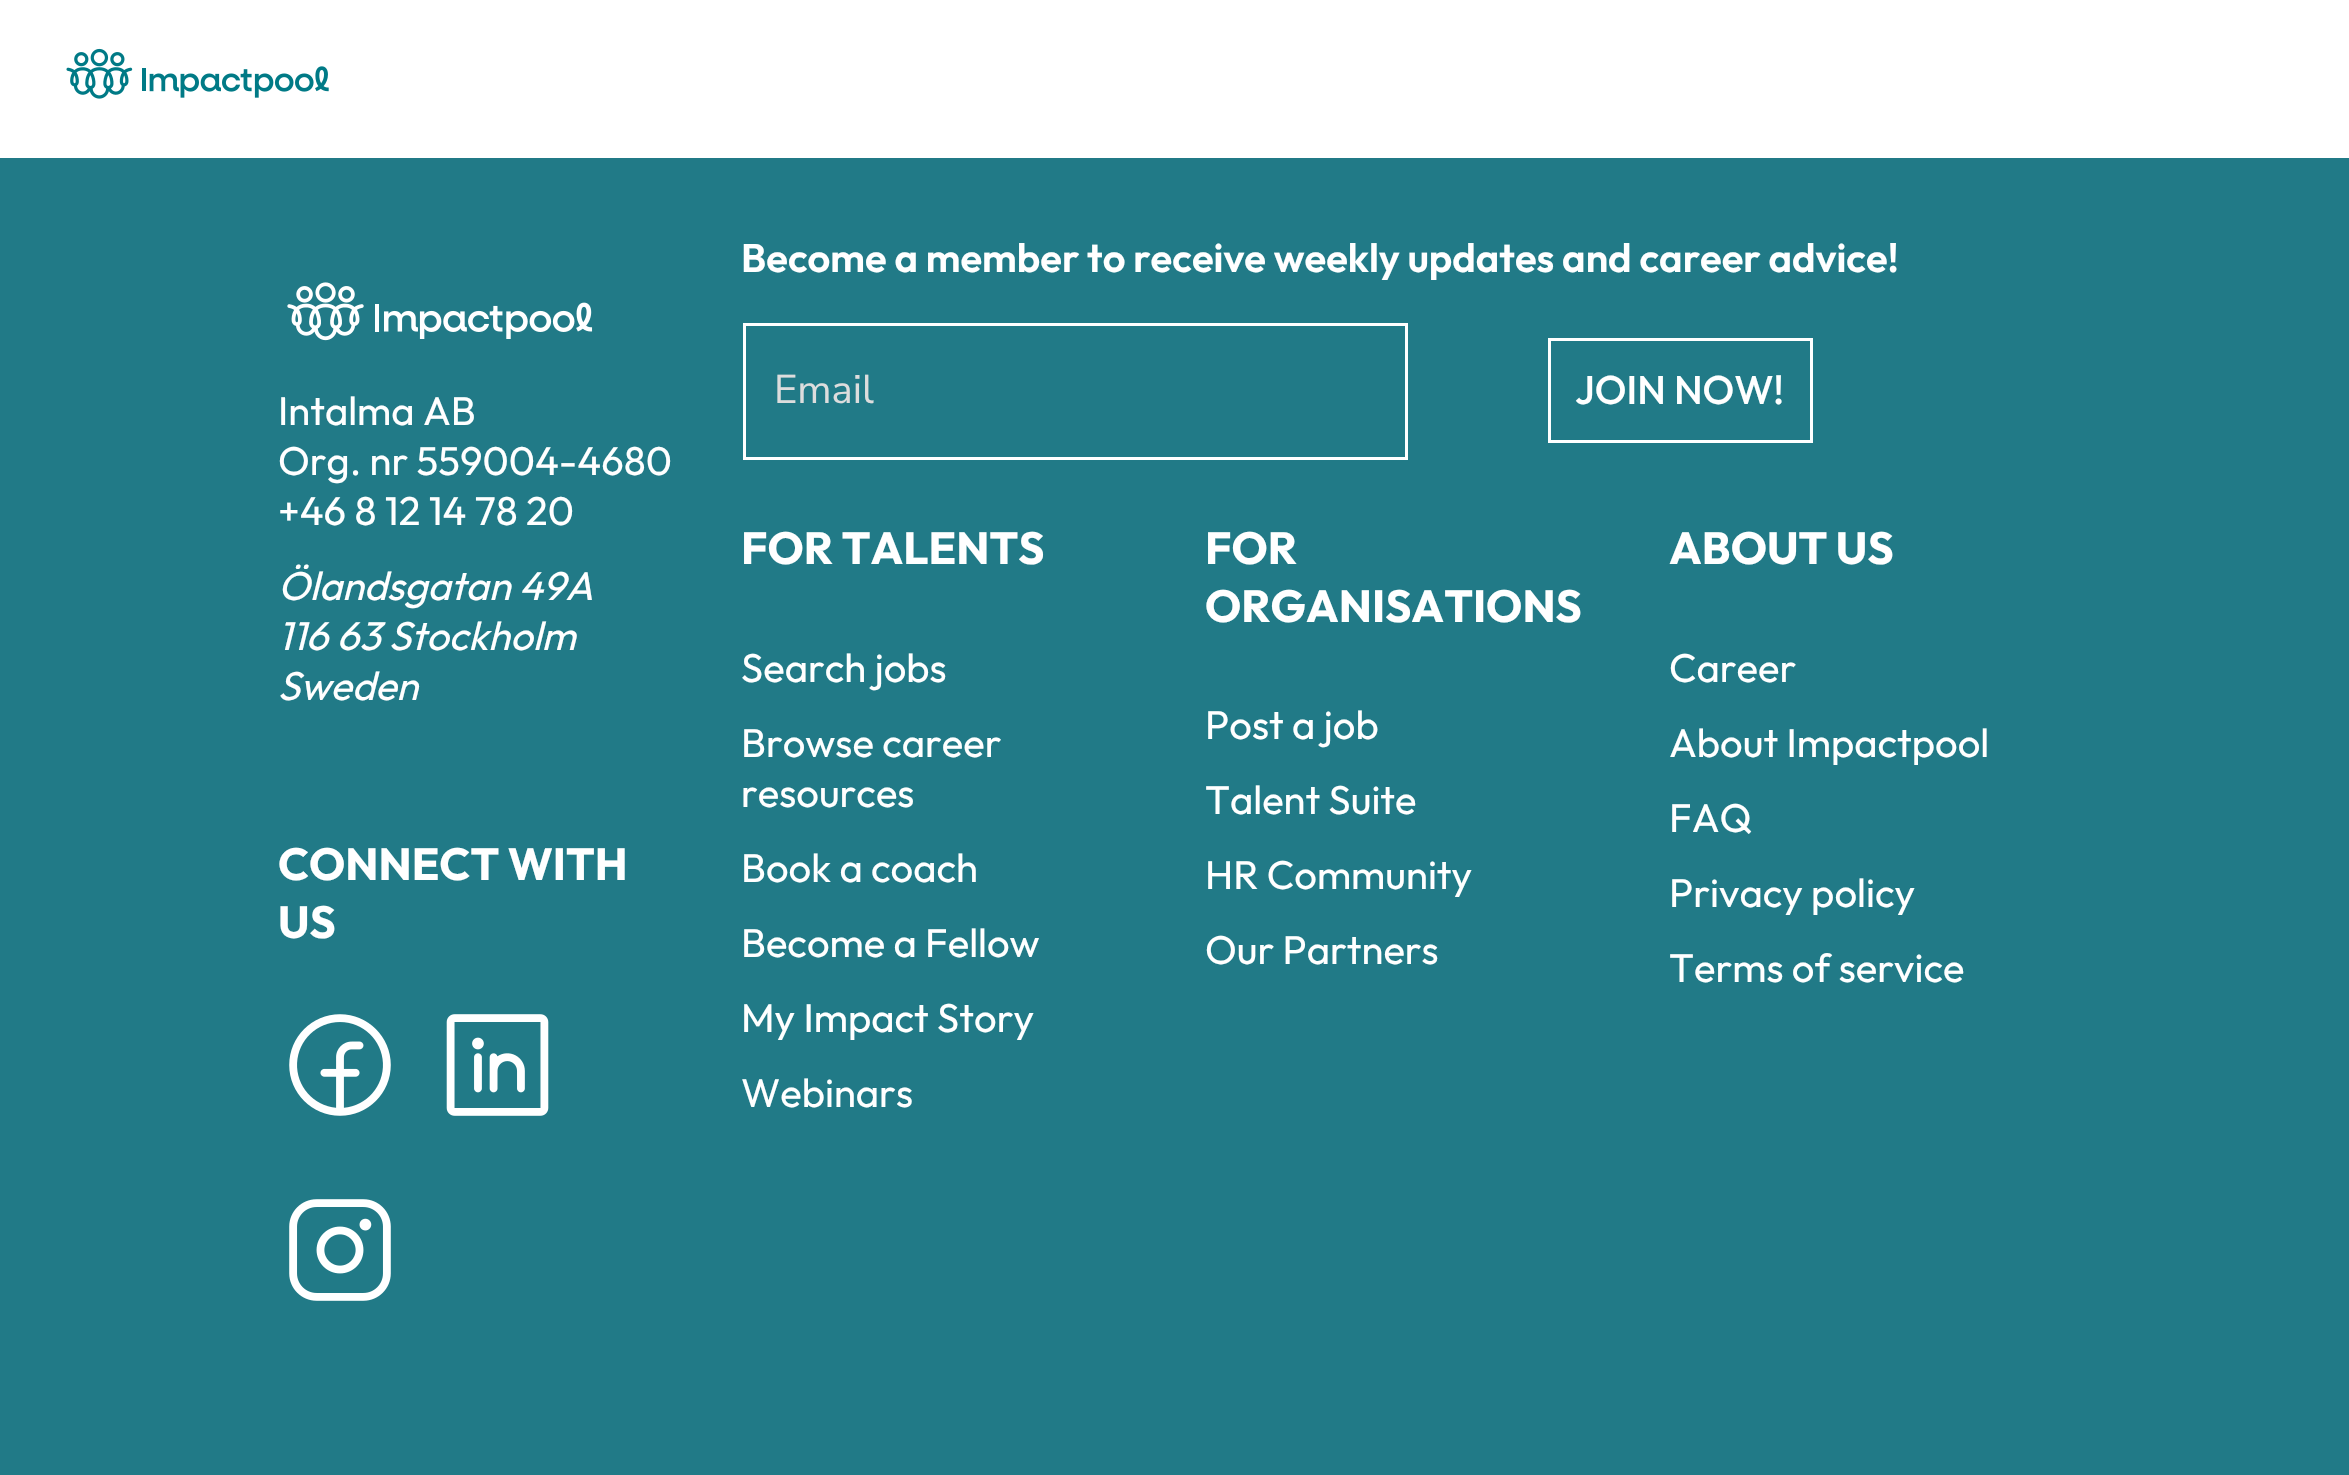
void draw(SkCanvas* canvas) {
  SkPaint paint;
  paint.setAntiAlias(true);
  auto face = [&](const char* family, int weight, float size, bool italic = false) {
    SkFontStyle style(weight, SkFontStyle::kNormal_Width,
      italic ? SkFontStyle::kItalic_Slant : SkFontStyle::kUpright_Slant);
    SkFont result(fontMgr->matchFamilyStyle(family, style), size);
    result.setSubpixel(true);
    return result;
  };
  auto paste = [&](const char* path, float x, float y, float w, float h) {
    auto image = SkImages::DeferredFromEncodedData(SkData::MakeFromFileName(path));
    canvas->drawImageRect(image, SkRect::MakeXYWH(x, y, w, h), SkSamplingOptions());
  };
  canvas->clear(0xffffffff);
  paste("img/1.png", 66, 48, 263, 51);
  paint.setColor(0xff217a87);
  canvas->drawRect(SkRect::MakeXYWH(0, 158, 2349, 1317), paint);
  paint.setStroke(true);
  paint.setStrokeWidth(3);
  paint.setColor(0xffffffff);
  canvas->drawRect(SkRect::MakeXYWH(744.5f, 324.5f, 662, 134), paint);
  canvas->drawRect(SkRect::MakeXYWH(1549.5f, 339.5f, 262, 102), paint);
  paste("img/2.png", 287, 282, 306, 59);
  paste("img/3.png", 289, 1014, 102, 102);
  paste("img/4.png", 446, 1014, 103, 102);
  paste("img/5.png", 289, 1199, 102, 102);
  auto f0 = face("Outfit", 600, 40);
  paint.setStroke(false);
  canvas->drawString("Become a member to receive weekly updates and career advice!", 741, 272, f0, paint);
  auto f1 = face("Nunito Sans", 400, 40);
  paint.setColor(0xffdddddd);
  canvas->drawString("Email", 774, 403, f1, paint);
  auto f2 = face("Outfit", 500, 40);
  paint.setColor(0xffffffff);
  canvas->drawString("JOIN NOW!", 1575, 404, f2, paint);
  auto f3 = face("Outfit", 400, 40);
  {
    const struct { const char* s; float x, y; } items[] = {
      {"Intalma AB", 278, 425},
      {"Org. nr 559004-4680", 278, 475},
      {"+46 8 12 14 78 20", 278, 525},
    };
    for (auto [s, x, y] : items) {
      canvas->drawString(s, x, y, f3, paint);
    }
  }
  auto f4 = face("Outfit", 400, 40, true);
  {
    const struct { const char* s; float x, y; } items[] = {
      {"Ölandsgatan 49A", 278, 600},
      {"116 63 Stockholm", 278, 650},
      {"Sweden", 278, 700},
    };
    for (auto [s, x, y] : items) {
      canvas->drawString(s, x, y, f4, paint);
    }
  }
  auto f5 = face("Outfit", 700, 45);
  canvas->drawString("FOR TALENTS", 741, 564, f5, paint);
  {
    const struct { const char* s; float x, y; } items[] = {
      {"Search jobs", 741, 682},
      {"Browse career", 741, 757},
      {"resources", 741, 807},
      {"Book a coach", 741, 882},
      {"Become a Fellow", 741, 957},
      {"My Impact Story", 741, 1032},
      {"Webinars", 741, 1107},
    };
    for (auto [s, x, y] : items) {
      canvas->drawString(s, x, y, f3, paint);
    }
  }
  canvas->drawString("FOR", 1205, 564, f5, paint);
  canvas->drawString("ORGANISATIONS", 1205, 622, f5, paint);
  {
    const struct { const char* s; float x, y; } items[] = {
      {"Post a job", 1205, 739},
      {"Talent Suite", 1205, 814},
      {"HR Community", 1205, 889},
      {"Our Partners", 1205, 964},
    };
    for (auto [s, x, y] : items) {
      canvas->drawString(s, x, y, f3, paint);
    }
  }
  canvas->drawString("ABOUT US", 1669, 564, f5, paint);
  {
    const struct { const char* s; float x, y; } items[] = {
      {"Career", 1669, 682},
      {"About Impactpool", 1669, 757},
      {"FAQ", 1669, 832},
      {"Privacy policy", 1669, 907},
      {"Terms of service", 1669, 982},
    };
    for (auto [s, x, y] : items) {
      canvas->drawString(s, x, y, f3, paint);
    }
  }
  canvas->drawString("CONNECT WITH", 278, 880, f5, paint);
  canvas->drawString("US", 278, 938, f5, paint);
}
